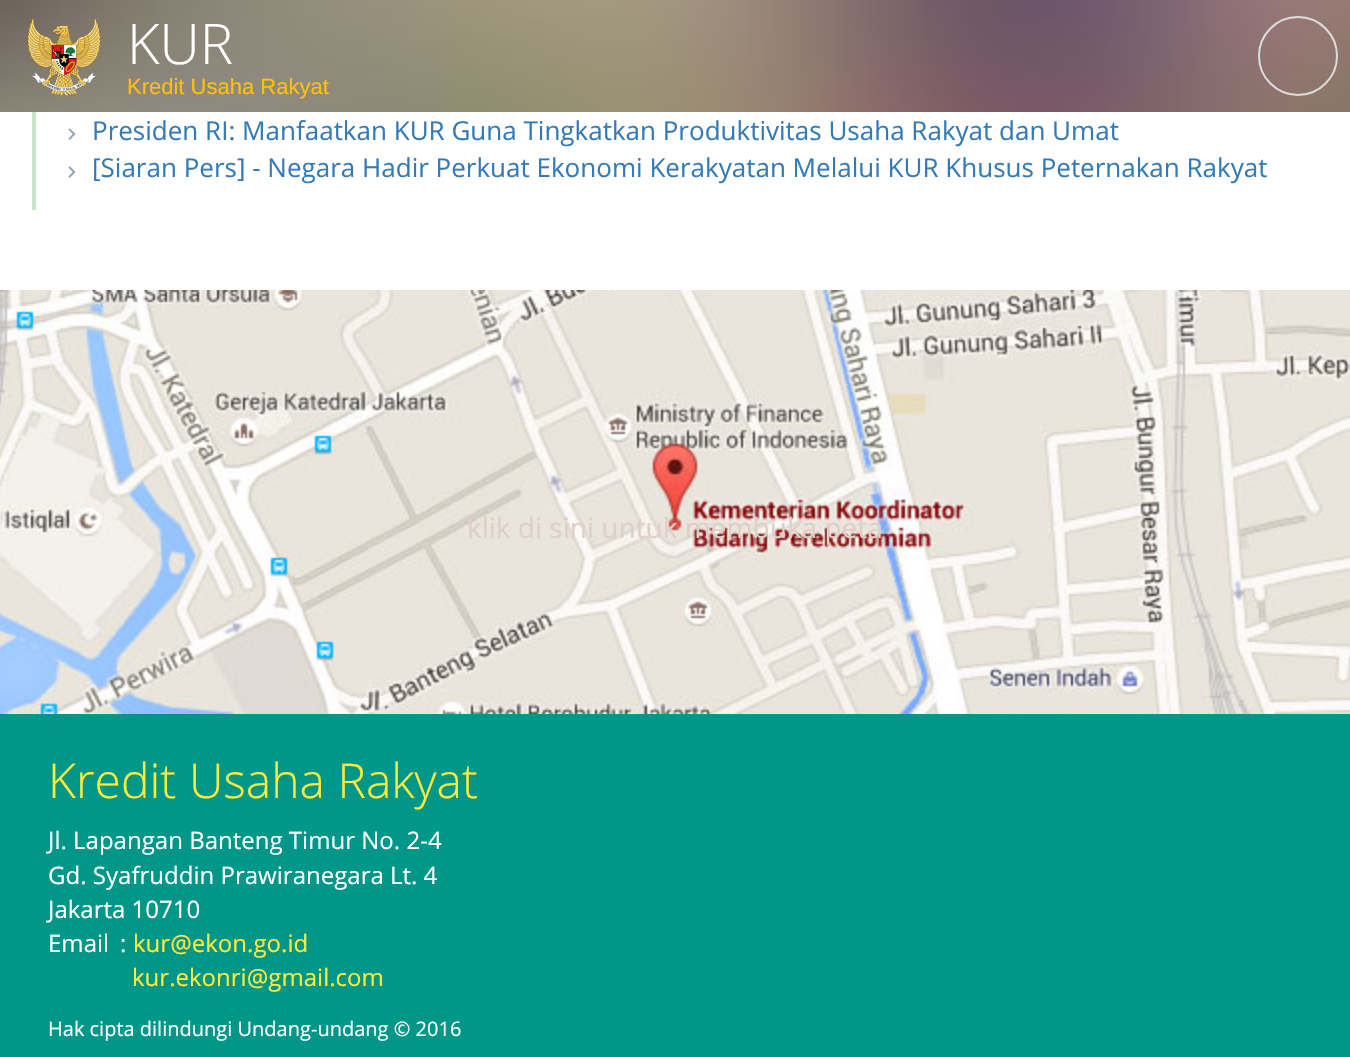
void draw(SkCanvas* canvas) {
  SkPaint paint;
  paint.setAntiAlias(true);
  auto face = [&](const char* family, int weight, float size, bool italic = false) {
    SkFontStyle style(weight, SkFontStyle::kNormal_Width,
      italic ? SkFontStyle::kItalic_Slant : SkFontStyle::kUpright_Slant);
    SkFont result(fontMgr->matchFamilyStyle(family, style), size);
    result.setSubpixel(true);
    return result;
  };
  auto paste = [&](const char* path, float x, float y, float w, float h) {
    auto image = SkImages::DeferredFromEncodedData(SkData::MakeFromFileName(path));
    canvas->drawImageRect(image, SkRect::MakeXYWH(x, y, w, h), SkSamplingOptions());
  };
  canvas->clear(0xffffffff);
  paste("img/1.png", 0, 0, 1350, 112);
  paste("img/2.png", 27, 17, 74, 79);
  paint.setStroke(true);
  paint.setStrokeWidth(2);
  paint.setColor(0xffdddddd);
  canvas->drawCircle(1298, 56, 39, paint);
  paint.setStroke(false);
  paint.setColor(0xffc8e6c9);
  canvas->drawRect(SkRect::MakeXYWH(32, 112, 4, 98), paint);
  paste("img/3.png", 68, 128, 8, 12);
  paste("img/3.png", 68, 166, 8, 12);
  paste("img/4.png", 0, 290, 1350, 424);
  paint.setColor(0xff009688);
  canvas->drawRect(SkRect::MakeXYWH(0, 714, 1350, 343), paint);
  auto f0 = face("Open Sans", 300, 56);
  paint.setColor(0xffffffff);
  canvas->drawString("KUR", 127, 64, f0, paint);
  auto f1 = face("Liberation Sans", 400, 22);
  paint.setColor(0xffffc107);
  canvas->drawString("Kredit Usaha Rakyat", 127, 94, f1, paint);
  auto f2 = face("Open Sans", 400, 26);
  paint.setColor(0xff337ab7);
  canvas->drawString("Presiden RI: Manfaatkan KUR Guna Tingkatkan Produktivitas Usaha Rakyat dan Umat", 92, 140, f2, paint);
  canvas->drawString("[Siaran Pers] - Negara Hadir Perkuat Ekonomi Kerakyatan Melalui KUR Khusus Peternakan Rakyat", 92, 177, f2, paint);
  auto f3 = face("Open Sans", 400, 28);
  paint.setColor(0xffe0cfc8);
  canvas->drawString("klik di sini untuk membuka peta", 467, 538, f3, paint);
  auto f4 = face("Open Sans", 300, 48);
  paint.setColor(0xffffeb3b);
  canvas->drawString("Kredit Usaha Rakyat", 48, 798, f4, paint);
  auto f5 = face("Open Sans", 400, 24);
  paint.setColor(0xffffffff);
  {
    const struct { const char* s; float x, y; } items[] = {
      {"Jl. Lapangan Banteng Timur No. 2-4", 48, 849},
      {"Gd. Syafruddin Prawiranegara Lt. 4", 48, 884},
      {"Jakarta 10710", 48, 918},
      {"Email", 48, 952},
      {":", 120, 952},
    };
    for (auto [s, x, y] : items) {
      canvas->drawString(s, x, y, f5, paint);
    }
  }
  paint.setColor(0xffffeb3b);
  canvas->drawString("kur@ekon.go.id", 133, 952, f5, paint);
  canvas->drawString("kur.ekonri@gmail.com", 132, 986, f5, paint);
  auto f6 = face("Open Sans", 400, 20);
  paint.setColor(0xffffffff);
  canvas->drawString("Hak cipta dilindungi Undang-undang © 2016", 48, 1036, f6, paint);
}
